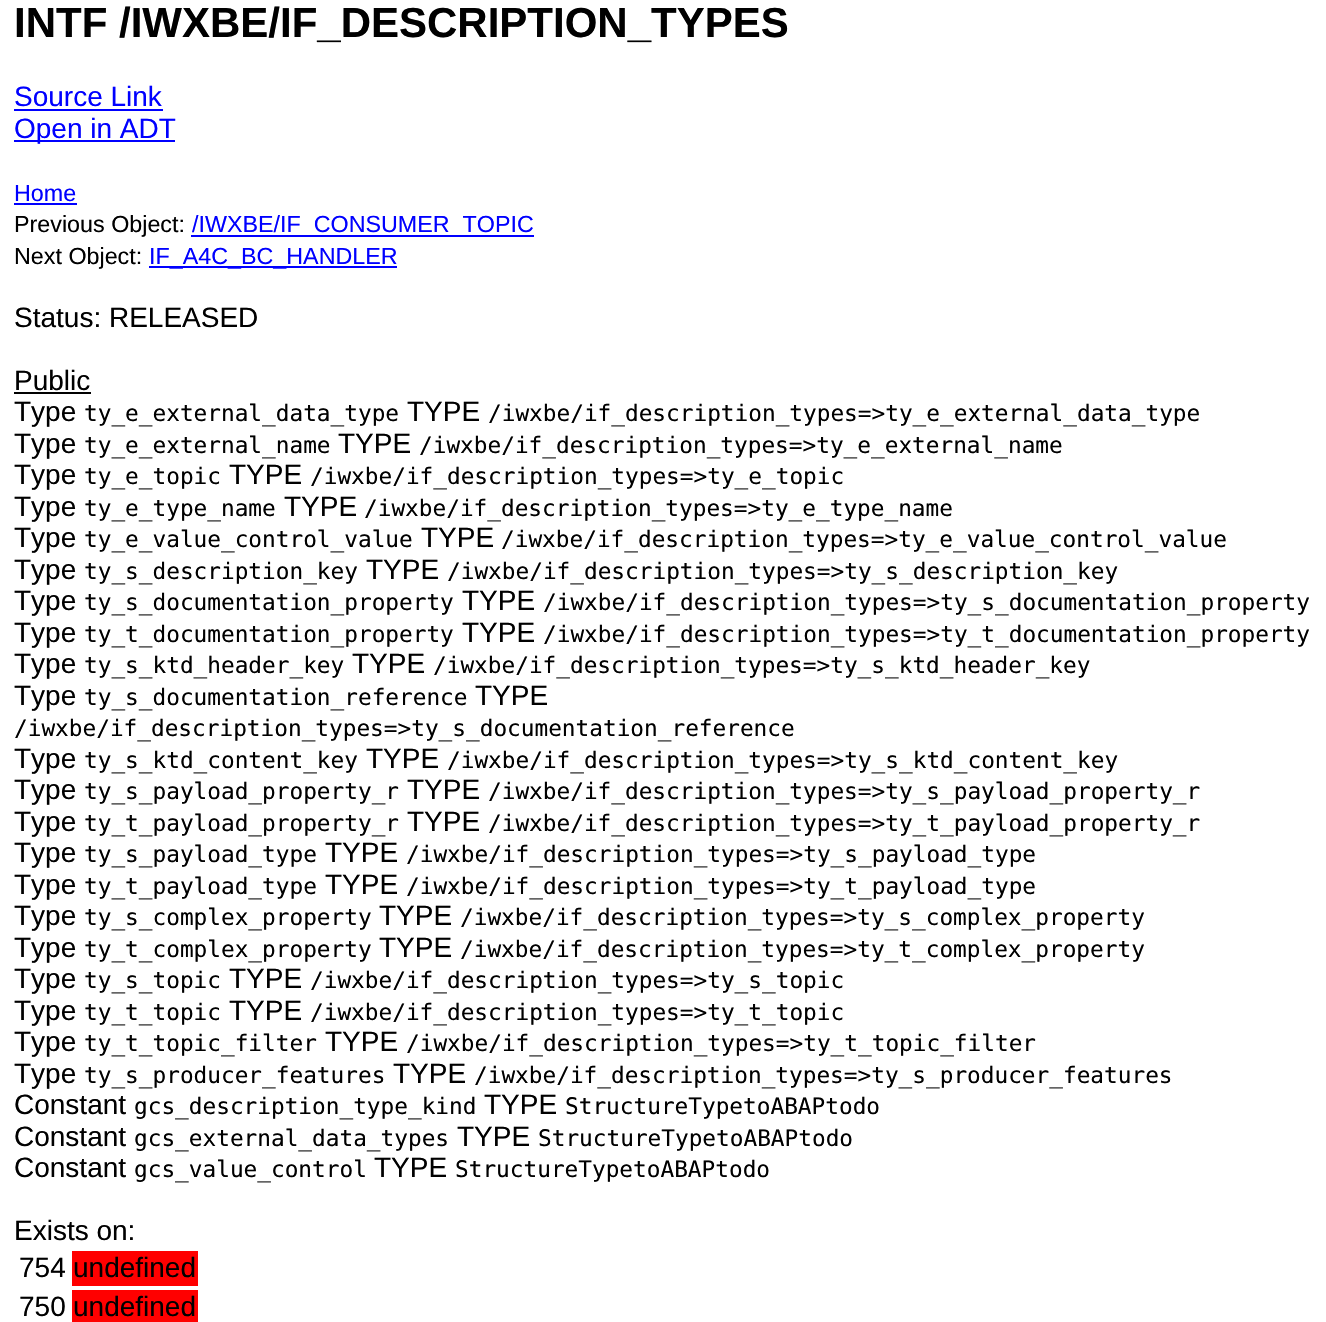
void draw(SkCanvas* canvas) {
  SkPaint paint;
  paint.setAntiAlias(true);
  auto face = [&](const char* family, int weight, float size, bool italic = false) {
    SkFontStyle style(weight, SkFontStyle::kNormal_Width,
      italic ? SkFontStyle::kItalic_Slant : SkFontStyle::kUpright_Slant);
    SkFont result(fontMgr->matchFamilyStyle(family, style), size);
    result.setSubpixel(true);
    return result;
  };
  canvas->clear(0xffffffff);
  {
    const struct { float x, y, w, h; SkColor color; } items[] = {
      {14, 109, 149, 2, 0xff0000ff},
      {14, 140, 161, 2, 0xff0000ff},
      {14, 203, 63, 2, 0xff0000ff},
      {191, 235, 343, 2, 0xff0000ff},
      {149, 266, 248, 2, 0xff0000ff},
      {14, 392, 77, 2, 0xff000000},
      {72, 1251, 126, 35, 0xffff0000},
      {72, 1290, 126, 32, 0xffff0000},
    };
    for (auto [x, y, w, h, color] : items) {
      paint.setColor(color);
      canvas->drawRect(SkRect::MakeXYWH(x, y, w, h), paint);
    }
  }
  auto f0 = face("Liberation Sans", 700, 42);
  paint.setColor(0xff000000);
  canvas->drawString("INTF /IWXBE/IF_DESCRIPTION_TYPES", 14, 37, f0, paint);
  auto f1 = face("Liberation Sans", 400, 28);
  paint.setColor(0xff0000ff);
  canvas->drawString("Source Link", 14, 106, f1, paint);
  canvas->drawString("Open in ADT", 14, 138, f1, paint);
  auto f2 = face("Liberation Sans", 400, 23.3f);
  canvas->drawString("Home", 14, 201, f2, paint);
  paint.setColor(0xff000000);
  canvas->drawString("Previous Object:", 14, 232, f2, paint);
  paint.setColor(0xff0000ff);
  canvas->drawString("/IWXBE/IF_CONSUMER_TOPIC", 192, 232, f2, paint);
  paint.setColor(0xff000000);
  canvas->drawString("Next Object:", 14, 264, f2, paint);
  paint.setColor(0xff0000ff);
  canvas->drawString("IF_A4C_BC_HANDLER", 149, 264, f2, paint);
  paint.setColor(0xff000000);
  {
    const struct { const char* s; float x, y; } items[] = {
      {"Status: RELEASED", 14, 327},
      {"Public", 14, 390},
      {"Type", 14, 421},
    };
    for (auto [s, x, y] : items) {
      canvas->drawString(s, x, y, f1, paint);
    }
  }
  auto f3 = face("DejaVu Sans Mono", 400, 22.75f);
  canvas->drawString("ty_e_external_data_type", 84, 421, f3, paint);
  canvas->drawString("TYPE", 407, 421, f1, paint);
  canvas->drawString("/iwxbe/if_description_types=>ty_e_external_data_type", 488, 421, f3, paint);
  canvas->drawString("Type", 14, 453, f1, paint);
  canvas->drawString("ty_e_external_name", 84, 453, f3, paint);
  canvas->drawString("TYPE", 338, 453, f1, paint);
  canvas->drawString("/iwxbe/if_description_types=>ty_e_external_name", 419, 453, f3, paint);
  canvas->drawString("Type", 14, 484, f1, paint);
  canvas->drawString("ty_e_topic", 84, 484, f3, paint);
  canvas->drawString("TYPE", 229, 484, f1, paint);
  canvas->drawString("/iwxbe/if_description_types=>ty_e_topic", 310, 484, f3, paint);
  canvas->drawString("Type", 14, 516, f1, paint);
  canvas->drawString("ty_e_type_name", 84, 516, f3, paint);
  canvas->drawString("TYPE", 284, 516, f1, paint);
  canvas->drawString("/iwxbe/if_description_types=>ty_e_type_name", 364, 516, f3, paint);
  canvas->drawString("Type", 14, 547, f1, paint);
  canvas->drawString("ty_e_value_control_value", 84, 547, f3, paint);
  canvas->drawString("TYPE", 421, 547, f1, paint);
  canvas->drawString("/iwxbe/if_description_types=>ty_e_value_control_value", 501, 547, f3, paint);
  canvas->drawString("Type", 14, 579, f1, paint);
  canvas->drawString("ty_s_description_key", 84, 579, f3, paint);
  canvas->drawString("TYPE", 366, 579, f1, paint);
  canvas->drawString("/iwxbe/if_description_types=>ty_s_description_key", 447, 579, f3, paint);
  canvas->drawString("Type", 14, 610, f1, paint);
  canvas->drawString("ty_s_documentation_property", 84, 610, f3, paint);
  canvas->drawString("TYPE", 462, 610, f1, paint);
  canvas->drawString("/iwxbe/if_description_types=>ty_s_documentation_property", 543, 610, f3, paint);
  canvas->drawString("Type", 14, 642, f1, paint);
  canvas->drawString("ty_t_documentation_property", 84, 642, f3, paint);
  canvas->drawString("TYPE", 462, 642, f1, paint);
  canvas->drawString("/iwxbe/if_description_types=>ty_t_documentation_property", 543, 642, f3, paint);
  canvas->drawString("Type", 14, 673, f1, paint);
  canvas->drawString("ty_s_ktd_header_key", 84, 673, f3, paint);
  canvas->drawString("TYPE", 352, 673, f1, paint);
  canvas->drawString("/iwxbe/if_description_types=>ty_s_ktd_header_key", 433, 673, f3, paint);
  canvas->drawString("Type", 14, 705, f1, paint);
  canvas->drawString("ty_s_documentation_reference", 84, 705, f3, paint);
  canvas->drawString("TYPE", 475, 705, f1, paint);
  canvas->drawString("/iwxbe/if_description_types=>ty_s_documentation_reference", 14, 736, f3, paint);
  canvas->drawString("Type", 14, 768, f1, paint);
  canvas->drawString("ty_s_ktd_content_key", 84, 768, f3, paint);
  canvas->drawString("TYPE", 366, 768, f1, paint);
  canvas->drawString("/iwxbe/if_description_types=>ty_s_ktd_content_key", 447, 768, f3, paint);
  canvas->drawString("Type", 14, 799, f1, paint);
  canvas->drawString("ty_s_payload_property_r", 84, 799, f3, paint);
  canvas->drawString("TYPE", 407, 799, f1, paint);
  canvas->drawString("/iwxbe/if_description_types=>ty_s_payload_property_r", 488, 799, f3, paint);
  canvas->drawString("Type", 14, 831, f1, paint);
  canvas->drawString("ty_t_payload_property_r", 84, 831, f3, paint);
  canvas->drawString("TYPE", 407, 831, f1, paint);
  canvas->drawString("/iwxbe/if_description_types=>ty_t_payload_property_r", 488, 831, f3, paint);
  canvas->drawString("Type", 14, 862, f1, paint);
  canvas->drawString("ty_s_payload_type", 84, 862, f3, paint);
  canvas->drawString("TYPE", 325, 862, f1, paint);
  canvas->drawString("/iwxbe/if_description_types=>ty_s_payload_type", 406, 862, f3, paint);
  canvas->drawString("Type", 14, 894, f1, paint);
  canvas->drawString("ty_t_payload_type", 84, 894, f3, paint);
  canvas->drawString("TYPE", 325, 894, f1, paint);
  canvas->drawString("/iwxbe/if_description_types=>ty_t_payload_type", 406, 894, f3, paint);
  canvas->drawString("Type", 14, 925, f1, paint);
  canvas->drawString("ty_s_complex_property", 84, 925, f3, paint);
  canvas->drawString("TYPE", 379, 925, f1, paint);
  canvas->drawString("/iwxbe/if_description_types=>ty_s_complex_property", 460, 925, f3, paint);
  canvas->drawString("Type", 14, 957, f1, paint);
  canvas->drawString("ty_t_complex_property", 84, 957, f3, paint);
  canvas->drawString("TYPE", 379, 957, f1, paint);
  canvas->drawString("/iwxbe/if_description_types=>ty_t_complex_property", 460, 957, f3, paint);
  canvas->drawString("Type", 14, 988, f1, paint);
  canvas->drawString("ty_s_topic", 84, 988, f3, paint);
  canvas->drawString("TYPE", 229, 988, f1, paint);
  canvas->drawString("/iwxbe/if_description_types=>ty_s_topic", 310, 988, f3, paint);
  canvas->drawString("Type", 14, 1020, f1, paint);
  canvas->drawString("ty_t_topic", 84, 1020, f3, paint);
  canvas->drawString("TYPE", 229, 1020, f1, paint);
  canvas->drawString("/iwxbe/if_description_types=>ty_t_topic", 310, 1020, f3, paint);
  canvas->drawString("Type", 14, 1051, f1, paint);
  canvas->drawString("ty_t_topic_filter", 84, 1051, f3, paint);
  canvas->drawString("TYPE", 325, 1051, f1, paint);
  canvas->drawString("/iwxbe/if_description_types=>ty_t_topic_filter", 406, 1051, f3, paint);
  canvas->drawString("Type", 14, 1083, f1, paint);
  canvas->drawString("ty_s_producer_features", 84, 1083, f3, paint);
  canvas->drawString("TYPE", 393, 1083, f1, paint);
  canvas->drawString("/iwxbe/if_description_types=>ty_s_producer_features", 474, 1083, f3, paint);
  canvas->drawString("Constant", 14, 1114, f1, paint);
  canvas->drawString("gcs_description_type_kind", 134, 1114, f3, paint);
  canvas->drawString("TYPE", 484, 1114, f1, paint);
  canvas->drawString("StructureTypetoABAPtodo", 565, 1114, f3, paint);
  canvas->drawString("Constant", 14, 1146, f1, paint);
  canvas->drawString("gcs_external_data_types", 134, 1146, f3, paint);
  canvas->drawString("TYPE", 457, 1146, f1, paint);
  canvas->drawString("StructureTypetoABAPtodo", 538, 1146, f3, paint);
  canvas->drawString("Constant", 14, 1177, f1, paint);
  canvas->drawString("gcs_value_control", 134, 1177, f3, paint);
  canvas->drawString("TYPE", 374, 1177, f1, paint);
  canvas->drawString("StructureTypetoABAPtodo", 455, 1177, f3, paint);
  {
    const struct { const char* s; float x, y; } items[] = {
      {"Exists on:", 14, 1240},
      {"754", 19, 1277},
      {"undefined", 73, 1277},
      {"750", 19, 1316},
      {"undefined", 73, 1316},
    };
    for (auto [s, x, y] : items) {
      canvas->drawString(s, x, y, f1, paint);
    }
  }
}
